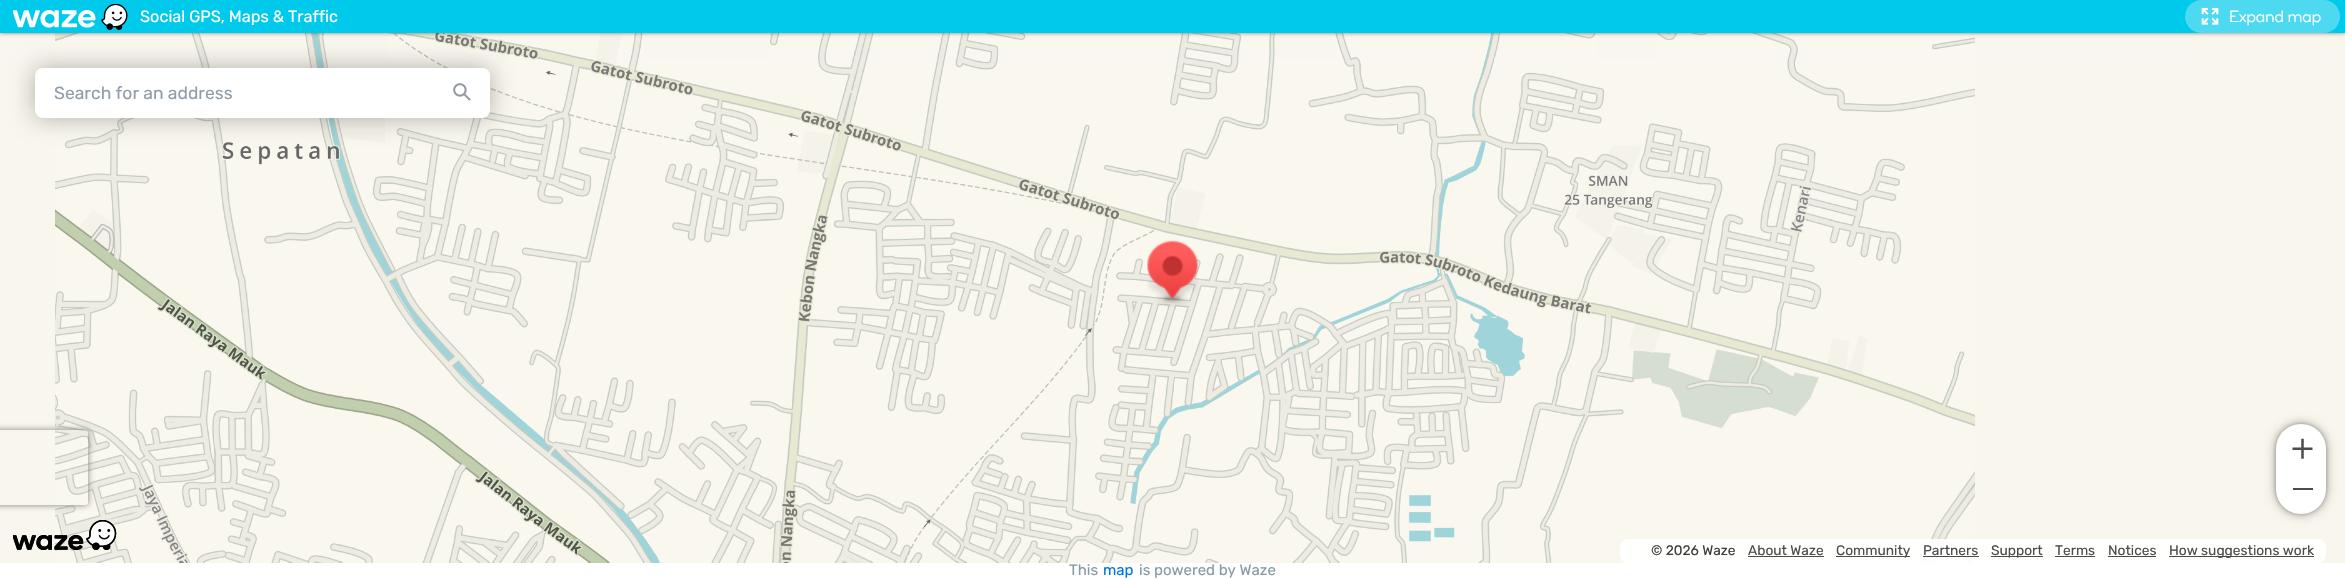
void draw(SkCanvas* canvas) {
  SkPaint paint;
  paint.setAntiAlias(true);
  auto face = [&](const char* family, int weight, float size, bool italic = false) {
    SkFontStyle style(weight, SkFontStyle::kNormal_Width,
      italic ? SkFontStyle::kItalic_Slant : SkFontStyle::kUpright_Slant);
    SkFont result(fontMgr->matchFamilyStyle(family, style), size);
    result.setSubpixel(true);
    return result;
  };
  auto paste = [&](const char* path, float x, float y, float w, float h) {
    auto image = SkImages::DeferredFromEncodedData(SkData::MakeFromFileName(path));
    canvas->drawImageRect(image, SkRect::MakeXYWH(x, y, w, h), SkSamplingOptions());
  };
  auto shape = [&](const char* data, bool evenOdd = false) {
    SkPath result = *SkParsePath::FromSVGString(data);
    if (evenOdd) result.setFillType(SkPathFillType::kEvenOdd);
    return result;
  };
  canvas->clear(0xffffffff);
  paint.setColor(0xfff9f6ed);
  canvas->drawRect(SkRect::MakeXYWH(0, 33, 2345, 530), paint);
  paste("img/3.png", 55, 33, 272, 27);
  paste("img/4.png", 388, 33, 255, 27);
  paste("img/5.png", 770, 33, 245, 27);
  paste("img/6.png", 1015, 33, 260, 27);
  paste("img/7.png", 1335, 33, 261, 27);
  paste("img/8.png", 1656, 33, 319, 27);
  paint.setColor(0x80000000);
  paint.setMaskFilter(SkMaskFilter::MakeBlur(kNormal_SkBlurStyle, 2));
  canvas->drawRect(SkRect::MakeXYWH(0, 0, 2345, 33), paint);
  paint.setMaskFilter(nullptr);
  paste("img/9.png", 55, 60, 320, 320);
  paste("img/10.png", 375, 60, 320, 320);
  paint.setColor(0x4d000000);
  paint.setMaskFilter(SkMaskFilter::MakeBlur(kNormal_SkBlurStyle, 12.5f));
  canvas->drawRoundRect(SkRect::MakeXYWH(35, 68, 455, 50), 8, 8, paint);
  paint.setMaskFilter(nullptr);
  paint.setColor(0xff00caeb);
  canvas->drawRect(SkRect::MakeXYWH(0, 0, 2345, 33), paint);
  paste("img/1.png", 13, 4, 115, 26);
  paint.setColor(0xff4ddaf1);
  canvas->drawRoundRect(SkRect::MakeXYWH(2185, 0, 155, 33), 16.5f, 16.5f, paint);
  paste("img/2.png", 2201, 7, 18, 18);
  paste("img/15.png", 55, 380, 320, 183);
  canvas->save();
  canvas->clipPath(shape("M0 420H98V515H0ZM-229.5 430H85.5C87 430 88 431 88 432.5V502.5C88 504 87 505 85.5 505H-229.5C-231 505-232 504-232 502.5V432.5C-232 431-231 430-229.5 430Z", true), true);
  paint.setColor(0xff808080);
  paint.setMaskFilter(SkMaskFilter::MakeBlur(kNormal_SkBlurStyle, 3));
  canvas->drawRoundRect(SkRect::MakeXYWH(-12, 430, 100, 75), 2.5f, 2.5f, paint);
  paint.setMaskFilter(nullptr);
  canvas->restore();
  paste("img/11.png", 695, 60, 320, 320);
  paste("img/12.png", 1015, 60, 320, 320);
  paste("img/13.png", 1335, 60, 320, 320);
  paste("img/14.png", 1655, 60, 320, 320);
  paste("img/16.png", 375, 380, 320, 183);
  paste("img/17.png", 695, 380, 320, 183);
  paste("img/18.png", 1015, 380, 320, 183);
  paste("img/19.png", 1335, 380, 320, 183);
  paste("img/20.png", 1655, 380, 320, 183);
  paste("img/21.png", 1147, 240, 52, 67);
  paint.setColor(0xffffffff);
  canvas->drawRoundRect(SkRect::MakeXYWH(35, 68, 455, 50), 8, 8, paint);
  {
    const SkColor colors[] = {0x00ffffff, 0xffffffff, 0xffffffff};
    const float stops[] = {0, 0.25f, 1};
    const SkPoint ends[] = {{428, 91}, {490, 91}};
    paint.setShader(SkGradientShader::MakeLinear(ends, colors, stops, 3, SkTileMode::kClamp));
    paint.setAlpha(255);
  }
  canvas->drawRoundRect(SkRect::MakeXYWH(428, 68, 62, 47), 8, 8, paint);
  paste("img/22.png", 453, 83, 18, 18);
  paste("img/23.png", 13, 520, 104, 30);
  paint.setShader(nullptr);
  paint.setColor(0x4d000000);
  paint.setMaskFilter(SkMaskFilter::MakeBlur(kNormal_SkBlurStyle, 6));
  canvas->drawRoundRect(SkRect::MakeXYWH(2276, 424, 50, 90), 25, 25, paint);
  paint.setMaskFilter(nullptr);
  paint.setMaskFilter(SkMaskFilter::MakeBlur(kNormal_SkBlurStyle, 2.5f));
  canvas->drawRoundRect(SkRect::MakeXYWH(2276, 424, 50, 90), 25, 25, paint);
  paint.setMaskFilter(nullptr);
  paint.setColor(0xffffffff);
  canvas->drawPath(shape("M2301 424C2315 424 2326 435 2326 449V469H2276V449C2276 435 2287 424 2301 424Z"), paint);
  paste("img/24.png", 2292, 438, 21, 21);
  canvas->drawPath(shape("M2276 469H2326V489C2326 503 2315 514 2301 514C2287 514 2276 503 2276 489Z"), paint);
  paint.setColor(0xff4c4c4c);
  canvas->drawRect(SkRect::MakeXYWH(2293, 488, 20, 2), paint);
  paint.setColor(0xe6ffffff);
  canvas->drawRoundRect(SkRect::MakeXYWH(1620, 539, 706, 24), 8, 8, paint);
  {
    const struct { float x, y, w, h; SkColor color; } items[] = {
      {1748, 556, 76, 1, 0xff4c4c4c},
      {1836, 556, 74, 1, 0xff4c4c4c},
      {1923, 556, 56, 1, 0xff4c4c4c},
      {1991, 556, 52, 1, 0xff4c4c4c},
      {2055, 556, 40, 1, 0xff4c4c4c},
      {2108, 556, 48, 1, 0xff4c4c4c},
      {2169, 556, 145, 1, 0xff4c4c4c},
    };
    for (auto [x, y, w, h, color] : items) {
      paint.setColor(color);
      canvas->drawRect(SkRect::MakeXYWH(x, y, w, h), paint);
    }
  }
  auto f0 = face("Rubik", 400, 16.25f);
  paint.setColor(0xffffffff);
  canvas->drawString("Social GPS, Maps & Traffic", 140, 22, f0, paint);
  auto f1 = face("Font", 300, 16.25f);
  canvas->drawString("Expand map", 2229, 22, f1, paint);
  auto f2 = face("Rubik", 400, 17.5f);
  paint.setColor(0xff919da9);
  canvas->drawString("Search for an address", 54, 99, f2, paint);
  auto f3 = face("Rubik", 400, 13.75f);
  paint.setColor(0xff3d3d3d);
  canvas->drawString("© 2026 Waze", 1651, 555, f3, paint);
  paint.setColor(0xff4c4c4c);
  {
    const struct { const char* s; float x, y; } items[] = {
      {"About Waze", 1748, 555},
      {"Community", 1836, 555},
      {"Partners", 1923, 555},
      {"Support", 1991, 555},
      {"Terms", 2055, 555},
      {"Notices", 2108, 555},
      {"How suggestions work", 2169, 555},
    };
    for (auto [s, x, y] : items) {
      canvas->drawString(s, x, y, f3, paint);
    }
  }
  auto f4 = face("Rubik", 400, 15);
  paint.setColor(0xff859ba6);
  canvas->drawString("This", 1069, 575, f4, paint);
  paint.setColor(0xff0075e3);
  canvas->drawString("map", 1103, 575, f4, paint);
  paint.setColor(0xff859ba6);
  canvas->drawString("is powered by Waze", 1139, 575, f4, paint);
}
